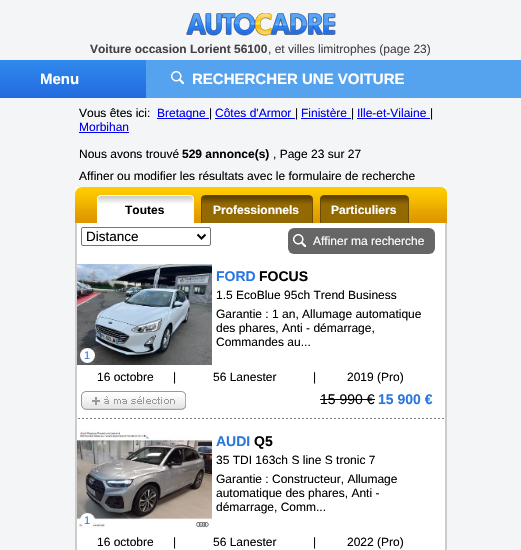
void draw(SkCanvas* canvas) {
  SkPaint paint;
  paint.setAntiAlias(true);
  auto face = [&](const char* family, int weight, float size, bool italic = false) {
    SkFontStyle style(weight, SkFontStyle::kNormal_Width,
      italic ? SkFontStyle::kItalic_Slant : SkFontStyle::kUpright_Slant);
    SkFont result(fontMgr->matchFamilyStyle(family, style), size);
    result.setSubpixel(true);
    return result;
  };
  auto paste = [&](const char* path, float x, float y, float w, float h) {
    auto image = SkImages::DeferredFromEncodedData(SkData::MakeFromFileName(path));
    canvas->drawImageRect(image, SkRect::MakeXYWH(x, y, w, h), SkSamplingOptions());
  };
  auto shape = [&](const char* data, bool evenOdd = false) {
    SkPath result = *SkParsePath::FromSVGString(data);
    if (evenOdd) result.setFillType(SkPathFillType::kEvenOdd);
    return result;
  };
  canvas->clear(0xfff4f5f7);
  paste("img/1.png", 186, 13, 150, 23);
  {
    const SkColor colors[] = {0xff3089ed, 0xff226bde};
    const float stops[] = {0, 1};
    const SkPoint ends[] = {{73, 60}, {73, 98}};
    paint.setShader(SkGradientShader::MakeLinear(ends, colors, stops, 2, SkTileMode::kClamp));
    paint.setAlpha(255);
  }
  canvas->drawRect(SkRect::MakeXYWH(0, 60, 146, 38), paint);
  paint.setShader(nullptr);
  paint.setColor(0xff55a2ef);
  canvas->drawRect(SkRect::MakeXYWH(146, 60, 375, 38), paint);
  paste("img/2.png", 171, 71, 13, 13);
  {
    const struct { float x, y, w, h; SkColor color; } items[] = {
      {157, 118, 52, 1, 0xff0000ee},
      {215, 118, 80, 1, 0xff0000ee},
      {301, 118, 50, 1, 0xff0000ee},
      {357, 118, 73, 1, 0xff0000ee},
      {79, 132, 50, 1, 0xff0000ee},
      {75, 187, 372, 67, 0xffffffff},
    };
    for (auto [x, y, w, h, color] : items) {
      paint.setColor(color);
      canvas->drawRect(SkRect::MakeXYWH(x, y, w, h), paint);
    }
  }
  paste("img/3.png", 75, 187, 372, 36);
  paste("img/4.png", 97, 195, 97, 28);
  paste("img/5.png", 201, 195, 112, 28);
  paste("img/6.png", 320, 195, 89, 28);
  paint.setColor(0xffcccccc);
  canvas->drawRect(SkRect::MakeXYWH(445, 223, 2, 327), paint);
  canvas->drawRect(SkRect::MakeXYWH(75, 223, 2, 327), paint);
  paint.setStroke(true);
  paint.setStrokeWidth(1);
  paint.setColor(0xff767676);
  canvas->drawRoundRect(SkRect::MakeXYWH(81.5f, 227.5f, 129, 18), 1.5f, 1.5f, paint);
  paint.setStrokeWidth(2);
  paint.setColor(0xff000000);
  canvas->drawPath(shape("M197.5 234.5L201.5 238.5L205.5 234.5"), paint);
  paint.setStroke(false);
  paint.setColor(0xff666666);
  canvas->drawRoundRect(SkRect::MakeXYWH(288, 228, 147, 26), 6, 6, paint);
  paste("img/7.png", 293, 234, 13, 13);
  paint.setColor(0xffffffff);
  canvas->drawRect(SkRect::MakeXYWH(77, 254, 368, 296), paint);
  paste("img/8.png", 78, 418, 366, 1);
  paste("img/9.png", 77, 264, 135, 101);
  canvas->drawCircle(87.5f, 355.5f, 7.5f, paint);
  paste("img/10.png", 81, 391, 105, 19);
  paste("img/11.png", 77, 429, 135, 99);
  canvas->drawCircle(87.5f, 520.5f, 7.5f, paint);
  auto f0 = face("Liberation Sans", 700, 12);
  paint.setColor(0xff434343);
  canvas->drawString("Voiture occasion Lorient 56100", 90, 53, f0, paint);
  auto f1 = face("Liberation Sans", 400, 12);
  canvas->drawString(", et villes limitrophes (page 23)", 268, 53, f1, paint);
  auto f2 = face("Liberation Sans", 700, 15);
  paint.setColor(0xffffffff);
  canvas->drawString("Menu", 40, 84, f2, paint);
  canvas->drawString("RECHERCHER UNE VOITURE", 192, 84, f2, paint);
  paint.setColor(0xff010101);
  canvas->drawString("Vous êtes ici:", 79, 117, f1, paint);
  paint.setColor(0xff0000ee);
  canvas->drawString("Bretagne", 157, 117, f1, paint);
  paint.setColor(0xff010101);
  canvas->drawString("|", 209, 117, f1, paint);
  paint.setColor(0xff0000ee);
  canvas->drawString("Côtes d'Armor", 215, 117, f1, paint);
  paint.setColor(0xff010101);
  canvas->drawString("|", 295, 117, f1, paint);
  paint.setColor(0xff0000ee);
  canvas->drawString("Finistère", 301, 117, f1, paint);
  paint.setColor(0xff010101);
  canvas->drawString("|", 351, 117, f1, paint);
  paint.setColor(0xff0000ee);
  canvas->drawString("Ille-et-Vilaine", 357, 117, f1, paint);
  paint.setColor(0xff010101);
  canvas->drawString("|", 430, 117, f1, paint);
  paint.setColor(0xff0000ee);
  canvas->drawString("Morbihan", 79, 131, f1, paint);
  paint.setColor(0xff010101);
  canvas->drawString("Nous avons trouvé", 79, 158, f1, paint);
  canvas->drawString("529 annonce(s)", 182, 158, f0, paint);
  canvas->drawString(", Page 23 sur 27", 273, 158, f1, paint);
  canvas->drawString("Affiner ou modifier les résultats avec le formulaire de recherche", 79, 180, f1, paint);
  canvas->drawString("Toutes", 125, 214, f0, paint);
  paint.setColor(0xffffffff);
  canvas->drawString("Professionnels", 213, 214, f0, paint);
  canvas->drawString("Particuliers", 331, 214, f0, paint);
  auto f3 = face("Liberation Sans", 400, 13.5f);
  paint.setColor(0xff010101);
  canvas->drawString("Distance", 86, 241, f3, paint);
  paint.setColor(0xffffffff);
  canvas->drawString("Affiner ma recherche", 313, 245, f1, paint);
  auto f4 = face("Liberation Sans", 700, 14);
  paint.setColor(0xff2977dc);
  canvas->drawString("FORD", 216, 281, f4, paint);
  paint.setColor(0xff010101);
  canvas->drawString("FOCUS", 259, 281, f4, paint);
  {
    const struct { const char* s; float x, y; } items[] = {
      {"1.5 EcoBlue 95ch Trend Business", 216, 299},
      {"Garantie : 1 an, Allumage automatique", 216, 318},
      {"des phares, Anti - démarrage,", 216, 332},
      {"Commandes au...", 216, 346},
    };
    for (auto [s, x, y] : items) {
      canvas->drawString(s, x, y, f1, paint);
    }
  }
  auto f5 = face("Liberation Sans", 400, 11);
  paint.setColor(0xff2977dc);
  canvas->drawString("1", 84, 359, f5, paint);
  paint.setColor(0xff010101);
  {
    const struct { const char* s; float x, y; } items[] = {
      {"16 octobre", 97, 381},
      {"|", 173, 381},
      {"56 Lanester", 213, 381},
      {"|", 313, 381},
      {"2019 (Pro)", 347, 381},
    };
    for (auto [s, x, y] : items) {
      canvas->drawString(s, x, y, f1, paint);
    }
  }
  auto f6 = face("Liberation Sans", 400, 14);
  canvas->drawString("15 990 €", 320, 404, f6, paint);
  paint.setColor(0xff000000);
  canvas->drawRect(SkRect::MakeXYWH(320, 399, 55, 1), paint);
  paint.setColor(0xff2977dc);
  canvas->drawString("15 900 €", 378, 404, f4, paint);
  canvas->drawString("AUDI", 216, 446, f4, paint);
  paint.setColor(0xff010101);
  canvas->drawString("Q5", 254, 446, f4, paint);
  {
    const struct { const char* s; float x, y; } items[] = {
      {"35 TDI 163ch S line S tronic 7", 216, 464},
      {"Garantie : Constructeur, Allumage", 216, 483},
      {"automatique des phares, Anti -", 216, 497},
      {"démarrage, Comm...", 216, 511},
    };
    for (auto [s, x, y] : items) {
      canvas->drawString(s, x, y, f1, paint);
    }
  }
  paint.setColor(0xff2977dc);
  canvas->drawString("1", 84, 524, f5, paint);
  paint.setColor(0xff010101);
  {
    const struct { const char* s; float x, y; } items[] = {
      {"16 octobre", 97, 546},
      {"|", 173, 546},
      {"56 Lanester", 213, 546},
      {"|", 313, 546},
      {"2022 (Pro)", 347, 546},
    };
    for (auto [s, x, y] : items) {
      canvas->drawString(s, x, y, f1, paint);
    }
  }
}
